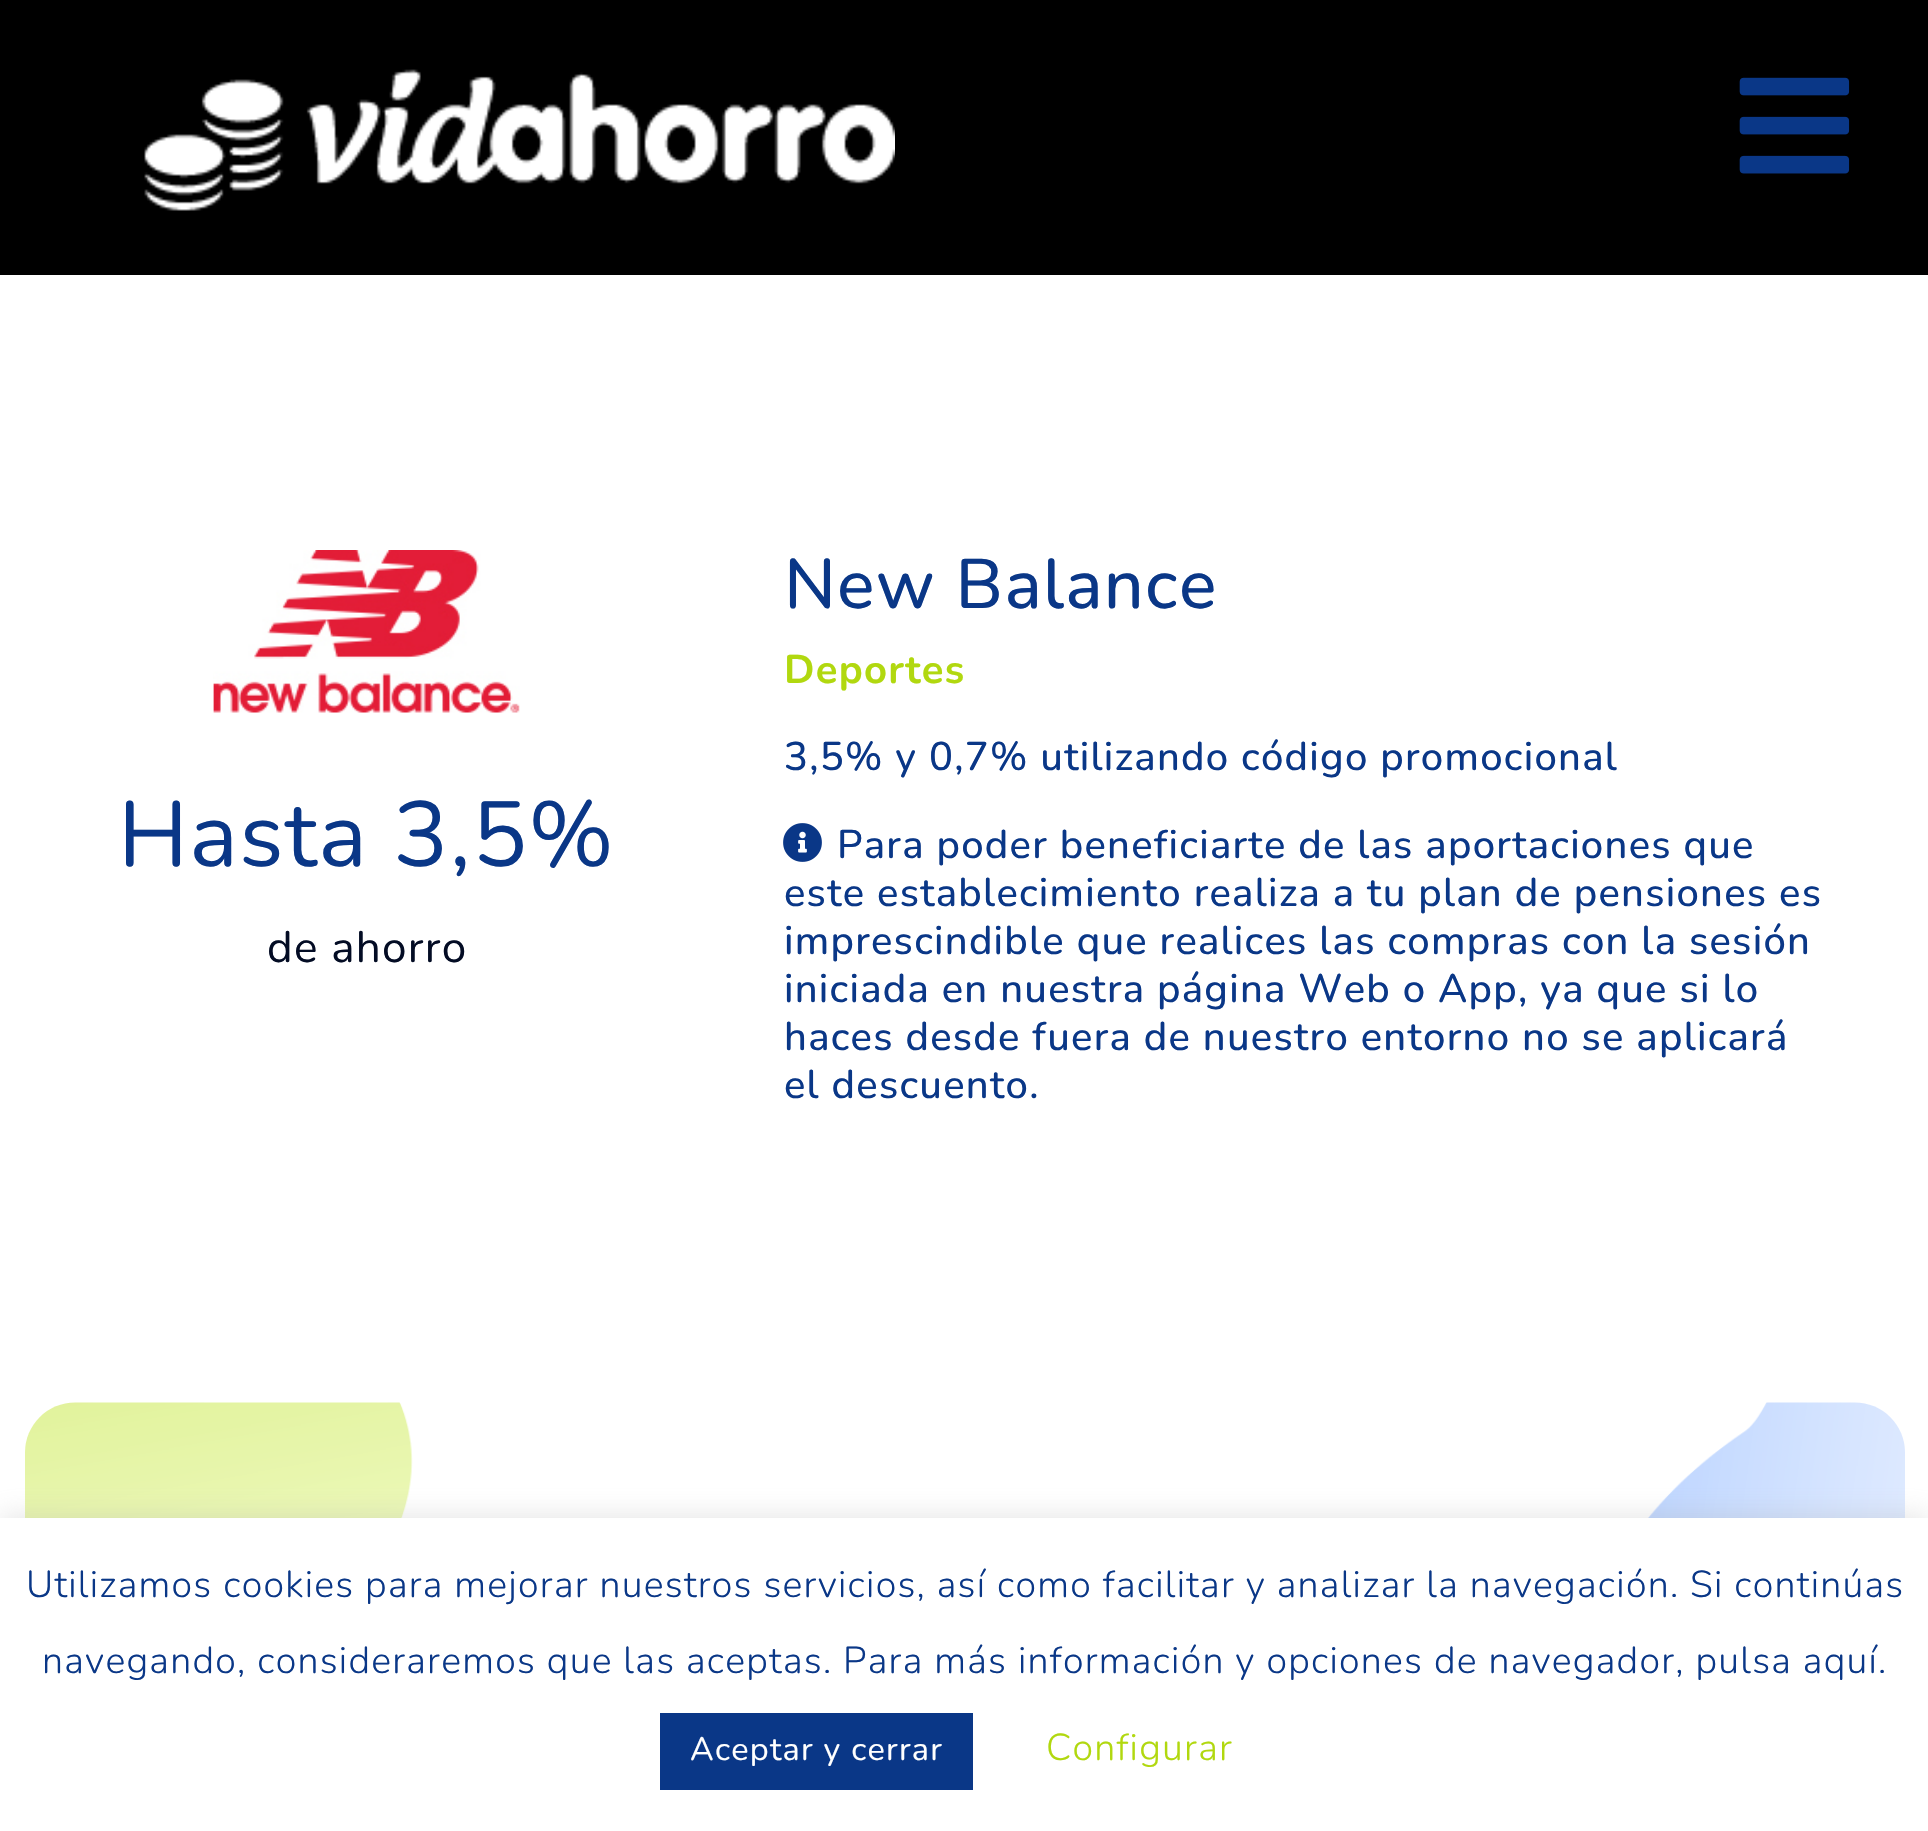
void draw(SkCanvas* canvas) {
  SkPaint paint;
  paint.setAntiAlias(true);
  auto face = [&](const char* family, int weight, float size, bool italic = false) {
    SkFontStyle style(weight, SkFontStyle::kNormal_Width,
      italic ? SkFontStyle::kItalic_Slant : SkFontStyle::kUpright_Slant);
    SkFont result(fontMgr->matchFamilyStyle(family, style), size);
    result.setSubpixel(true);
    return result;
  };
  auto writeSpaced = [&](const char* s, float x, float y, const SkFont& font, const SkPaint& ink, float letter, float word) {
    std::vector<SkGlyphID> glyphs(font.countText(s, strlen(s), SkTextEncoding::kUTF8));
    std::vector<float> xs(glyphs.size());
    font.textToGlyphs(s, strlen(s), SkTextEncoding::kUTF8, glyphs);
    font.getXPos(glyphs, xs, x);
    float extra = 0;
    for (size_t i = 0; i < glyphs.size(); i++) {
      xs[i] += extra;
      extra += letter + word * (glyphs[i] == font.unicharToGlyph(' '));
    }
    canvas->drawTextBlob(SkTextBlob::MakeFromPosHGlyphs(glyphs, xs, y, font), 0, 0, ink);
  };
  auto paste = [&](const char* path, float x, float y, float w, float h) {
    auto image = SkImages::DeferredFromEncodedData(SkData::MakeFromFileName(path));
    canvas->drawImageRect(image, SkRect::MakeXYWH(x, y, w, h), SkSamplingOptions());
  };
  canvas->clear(0xffffffff);
  paint.setColor(0xff000000);
  canvas->drawRect(SkRect::MakeXYWH(0, 0, 1928, 275), paint);
  paste("img/1.png", 144, 69, 751, 142);
  paste("img/2.png", 1739, 77, 111, 97);
  paste("img/3.png", 213, 550, 307, 163);
  paste("img/4.png", 783, 823, 39, 39);
  paste("img/5.png", 25, 1402, 1880, 116);
  paint.setColor(0x4dacabab);
  paint.setMaskFilter(SkMaskFilter::MakeBlur(kNormal_SkBlurStyle, 12.5f));
  canvas->drawRect(SkRect::MakeXYWH(0, 1515, 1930, 315), paint);
  paint.setMaskFilter(nullptr);
  paint.setColor(0xffffffff);
  canvas->drawRect(SkRect::MakeXYWH(0, 1518, 1928, 313), paint);
  paint.setColor(0xff0a3787);
  canvas->drawRect(SkRect::MakeXYWH(660, 1713, 313, 77), paint);
  auto f0 = face("Nunito", 400, 92);
  writeSpaced("Hasta 3,5%", 118, 866, f0, paint, 1.25f, 0);
  auto f1 = face("Nunito", 400, 44);
  paint.setColor(0xff030c24);
  writeSpaced("de ahorro", 267, 962, f1, paint, 1.25f, 0);
  auto f2 = face("Nunito", 500, 70);
  paint.setColor(0xff0a3787);
  writeSpaced("New Balance", 784, 608, f2, paint, 1.25f, 0);
  auto f3 = face("Nunito", 700, 40);
  paint.setColor(0xffb1d80f);
  writeSpaced("Deportes", 784, 683, f3, paint, 1.25f, 0);
  auto f4 = face("Nunito", 500, 40);
  paint.setColor(0xff0a3787);
  {
    const struct { const char* s; float x, y; } items[] = {
      {"3,5% y 0,7% utilizando código promocional", 784, 770},
      {"Para poder beneficiarte de las aportaciones que", 837, 858},
      {"este establecimiento realiza a tu plan de pensiones es", 784, 906},
      {"imprescindible que realices las compras con la sesión", 784, 954},
      {"iniciada en nuestra página Web o App, ya que si lo", 784, 1002},
      {"haces desde fuera de nuestro entorno no se aplicará", 784, 1050},
      {"el descuento.", 784, 1098},
    };
    for (auto [s, x, y] : items) {
      writeSpaced(s, x, y, f4, paint, 1.25f, 0);
    }
  }
  auto f5 = face("Nunito", 300, 37.5f);
  writeSpaced("Utilizamos cookies para mejorar nuestros servicios, así como facilitar y analizar la navegación. Si continúas", 26, 1597, f5, paint, 1.25f, 0);
  writeSpaced("navegando, consideraremos que las aceptas. Para más información y opciones de navegador, pulsa aquí.", 42, 1673, f5, paint, 1.25f, 0);
  auto f6 = face("Nunito", 400, 32.5f);
  paint.setColor(0xffffffff);
  writeSpaced("Aceptar y cerrar", 690, 1760, f6, paint, 1.25f, 0);
  paint.setColor(0xffb1d80f);
  writeSpaced("Configurar", 1046, 1760, f5, paint, 1.25f, 0);
}
